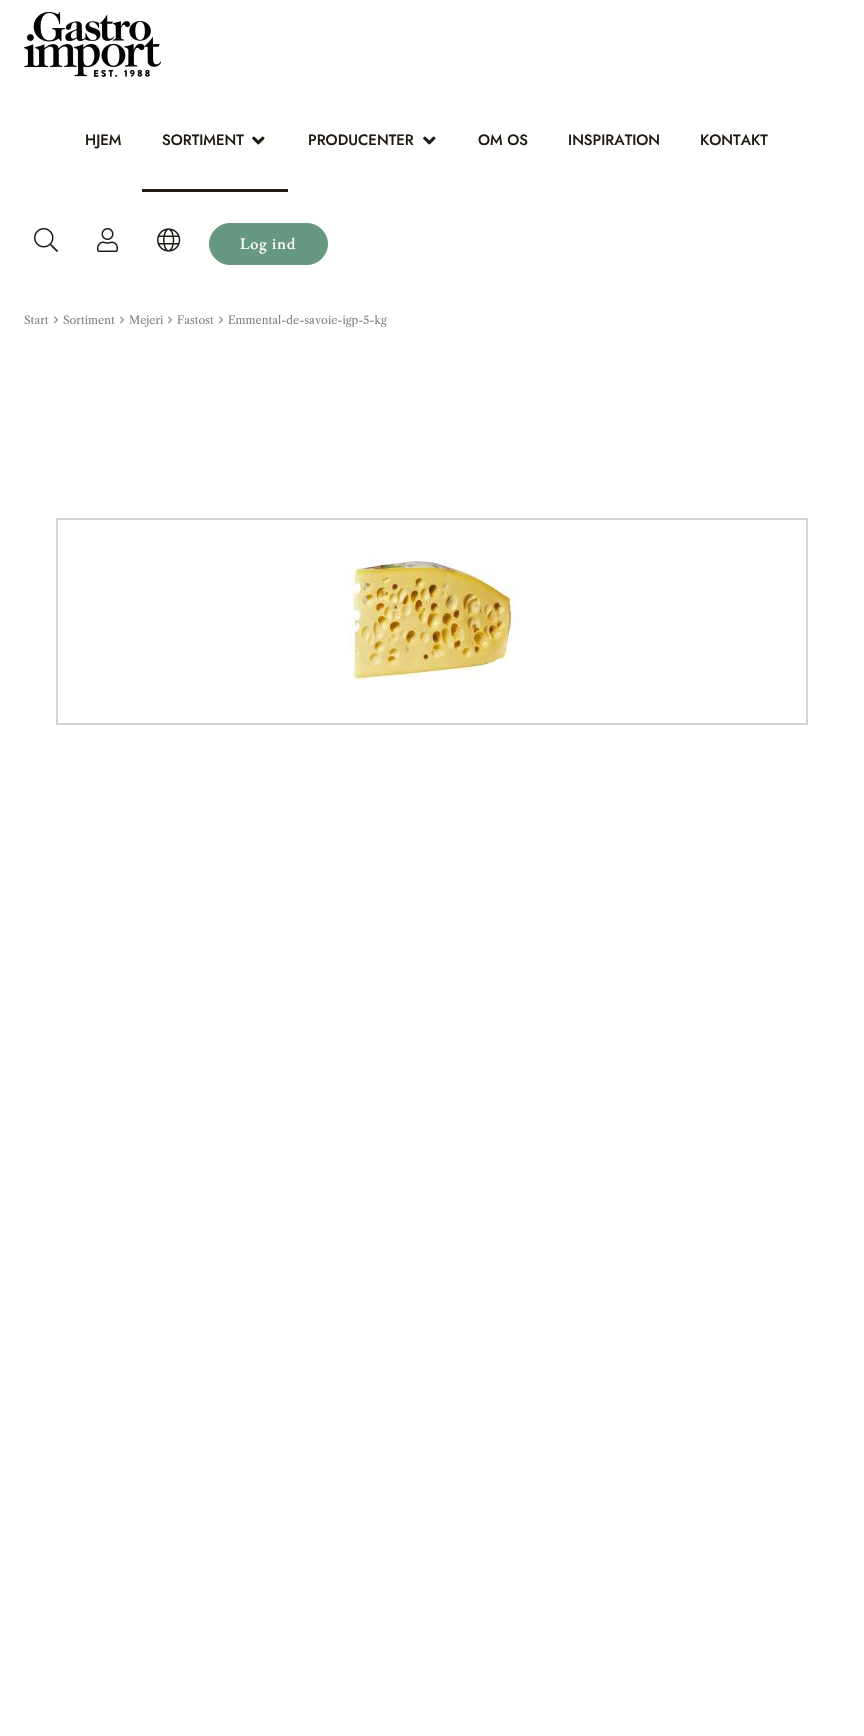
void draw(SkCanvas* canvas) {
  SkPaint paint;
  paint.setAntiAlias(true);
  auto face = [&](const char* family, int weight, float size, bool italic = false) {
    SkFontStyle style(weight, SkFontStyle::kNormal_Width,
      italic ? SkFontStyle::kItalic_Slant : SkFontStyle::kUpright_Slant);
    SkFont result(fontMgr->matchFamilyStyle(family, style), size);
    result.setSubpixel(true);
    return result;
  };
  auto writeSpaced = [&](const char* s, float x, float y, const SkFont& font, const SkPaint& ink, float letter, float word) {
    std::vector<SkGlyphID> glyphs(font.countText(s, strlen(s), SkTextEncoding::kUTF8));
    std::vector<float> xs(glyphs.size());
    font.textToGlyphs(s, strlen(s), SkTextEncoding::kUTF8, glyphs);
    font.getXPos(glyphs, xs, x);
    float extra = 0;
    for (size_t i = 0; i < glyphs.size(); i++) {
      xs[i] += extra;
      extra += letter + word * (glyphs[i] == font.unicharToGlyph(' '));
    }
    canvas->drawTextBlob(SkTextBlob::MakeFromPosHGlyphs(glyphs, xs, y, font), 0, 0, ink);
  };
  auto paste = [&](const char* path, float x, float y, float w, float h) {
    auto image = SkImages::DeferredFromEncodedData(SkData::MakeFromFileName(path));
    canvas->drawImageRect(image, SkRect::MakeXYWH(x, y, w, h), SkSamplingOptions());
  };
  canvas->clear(0xffffffff);
  paste("img/1.png", 24, 12, 137, 65);
  paint.setColor(0xff1f1b14);
  canvas->drawRect(SkRect::MakeXYWH(142, 189, 146, 3), paint);
  paste("img/2.png", 252, 136, 13, 9);
  paste("img/2.png", 423, 136, 13, 9);
  paste("img/3.png", 34, 228, 24, 24);
  paste("img/4.png", 97, 228, 21, 24);
  paste("img/5.png", 157, 228, 24, 24);
  paint.setColor(0xff679882);
  canvas->drawRoundRect(SkRect::MakeXYWH(209.5f, 223.5f, 118, 41), 20.5f, 20.5f, paint);
  paint.setStroke(true);
  paint.setStrokeWidth(1);
  canvas->drawRoundRect(SkRect::MakeXYWH(209.5f, 223.5f, 118, 41), 20.5f, 20.5f, paint);
  paste("img/6.png", 54, 316, 5, 8);
  paste("img/6.png", 120, 316, 5, 8);
  paste("img/6.png", 168, 316, 5, 8);
  paste("img/6.png", 219, 316, 5, 8);
  paint.setStrokeWidth(2);
  paint.setColor(0xffd3d3d3);
  canvas->drawRect(SkRect::MakeXYWH(57, 519, 750, 205), paint);
  paste("img/7.png", 347, 555, 177, 126);
  auto f0 = face("Jost", 500, 15);
  paint.setStroke(false);
  paint.setColor(0xff1f1b14);
  {
    const struct { const char* s; float x, y; } items[] = {
      {"HJEM", 85, 145},
      {"SORTIMENT", 162, 145},
      {"PRODUCENTER", 308, 145},
      {"OM OS", 478, 145},
      {"INSPIRATION", 568, 145},
      {"KONTAKT", 700, 145},
    };
    for (auto [s, x, y] : items) {
      canvas->drawString(s, x, y, f0, paint);
    }
  }
  auto f1 = face("EB Garamond", 500, 16);
  paint.setColor(0xffffffff);
  writeSpaced("Log ind", 240, 249, f1, paint, 1, 0);
  auto f2 = face("Libre Caslon Text", 400, 11);
  paint.setColor(0xff808080);
  {
    const struct { const char* s; float x, y; } items[] = {
      {"Start", 24, 324},
      {"Sortiment", 63, 324},
      {"Mejeri", 129, 324},
      {"Fastost", 177, 324},
      {"Emmental-de-savoie-igp-5-kg", 228, 324},
    };
    for (auto [s, x, y] : items) {
      canvas->drawString(s, x, y, f2, paint);
    }
  }
}
